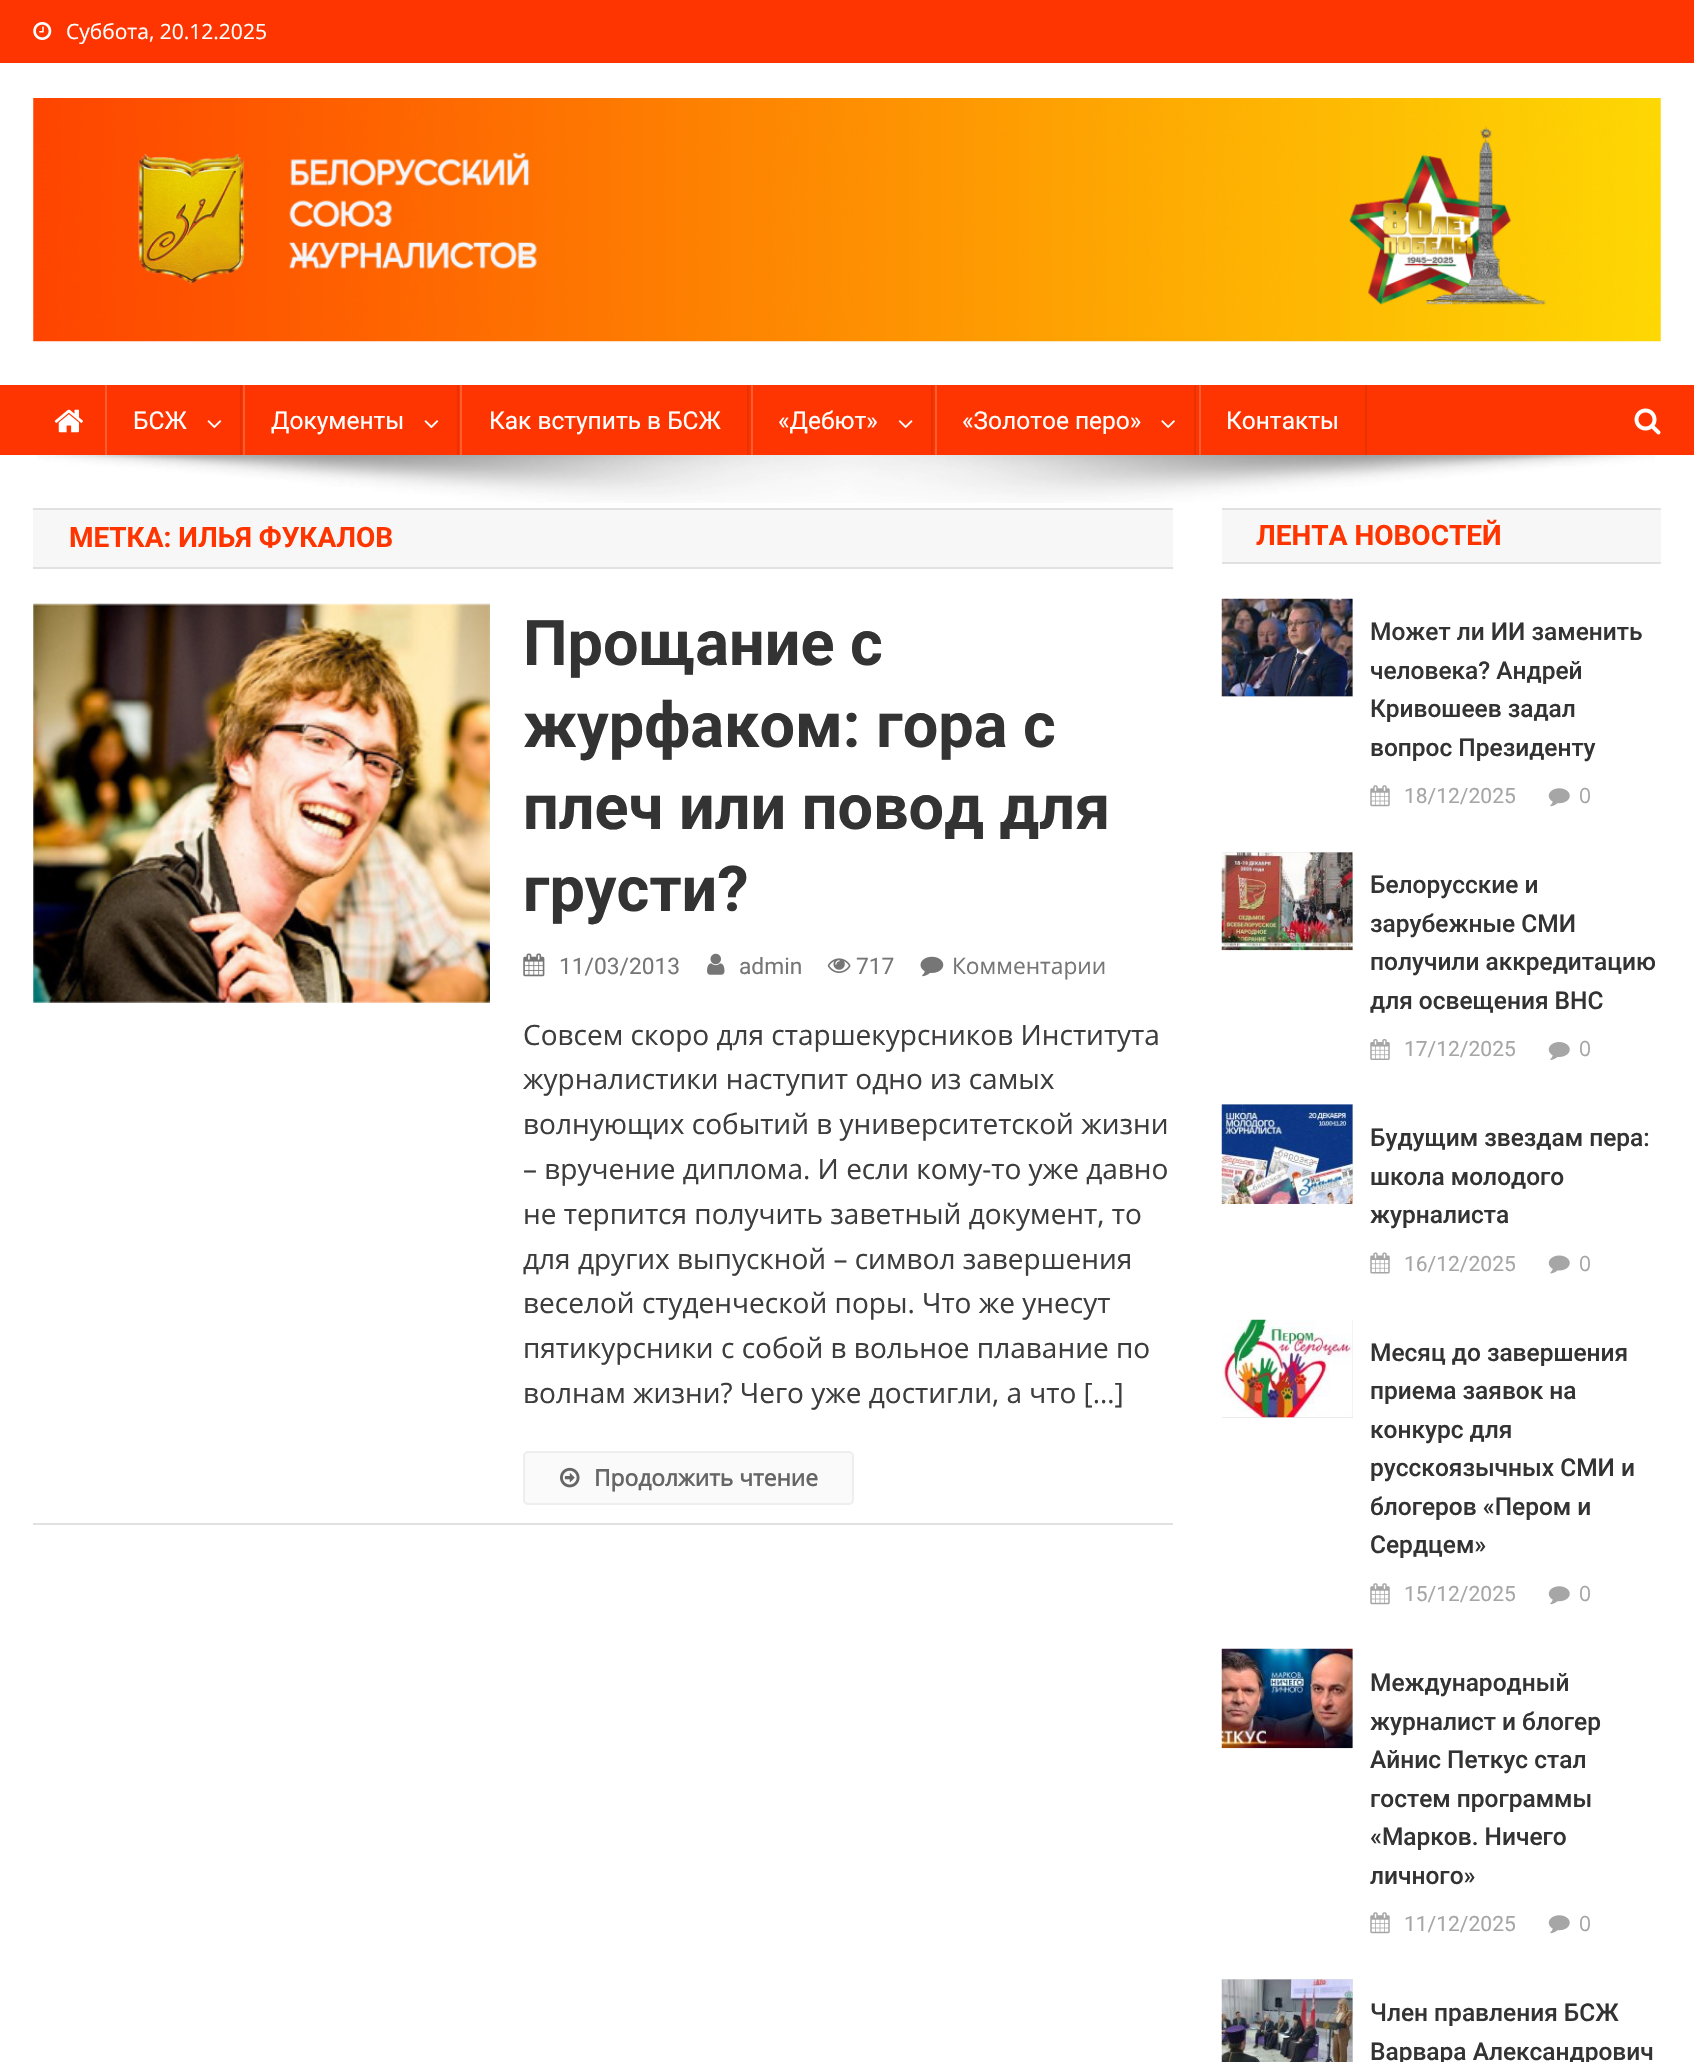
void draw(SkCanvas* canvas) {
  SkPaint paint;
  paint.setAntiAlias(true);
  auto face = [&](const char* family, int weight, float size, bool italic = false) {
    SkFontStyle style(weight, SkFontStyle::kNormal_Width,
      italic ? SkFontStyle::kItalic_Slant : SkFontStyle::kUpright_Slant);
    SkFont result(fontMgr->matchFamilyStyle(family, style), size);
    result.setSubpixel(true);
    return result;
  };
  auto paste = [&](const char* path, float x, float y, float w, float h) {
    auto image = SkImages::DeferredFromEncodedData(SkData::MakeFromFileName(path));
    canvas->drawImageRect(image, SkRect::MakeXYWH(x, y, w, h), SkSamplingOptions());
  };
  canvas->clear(0xffffffff);
  paint.setColor(0xfffe3500);
  canvas->drawRect(SkRect::MakeXYWH(0, 0, 1694, 63), paint);
  paste("img/1.png", 33, 22, 19, 18);
  paste("img/2.png", 33, 98, 1628, 244);
  canvas->drawRect(SkRect::MakeXYWH(0, 385, 1694, 70), paint);
  paste("img/3.png", 54, 409, 29, 24);
  paint.setColor(0xffea3100);
  canvas->drawRect(SkRect::MakeXYWH(240, 385, 2, 70), paint);
  paint.setColor(0xfffe5d33);
  canvas->drawRect(SkRect::MakeXYWH(105, 385, 2, 70), paint);
  paste("img/4.png", 207, 420, 15, 9);
  paint.setColor(0xffea3100);
  canvas->drawRect(SkRect::MakeXYWH(457, 385, 2, 70), paint);
  paint.setColor(0xfffe5d33);
  canvas->drawRect(SkRect::MakeXYWH(243, 385, 2, 70), paint);
  paste("img/4.png", 424, 420, 15, 9);
  {
    const struct { float x, y, w, h; SkColor color; } items[] = {
      {747, 385, 2, 70, 0xffea3100},
      {460, 385, 2, 70, 0xfffe5d33},
      {931, 385, 2, 70, 0xffea3100},
      {751, 385, 2, 70, 0xfffe5d33},
    };
    for (auto [x, y, w, h, color] : items) {
      paint.setColor(color);
      canvas->drawRect(SkRect::MakeXYWH(x, y, w, h), paint);
    }
  }
  paste("img/5.png", 898, 420, 15, 9);
  paint.setColor(0xffea3100);
  canvas->drawRect(SkRect::MakeXYWH(1194, 385, 2, 70), paint);
  paint.setColor(0xfffe5d33);
  canvas->drawRect(SkRect::MakeXYWH(935, 385, 2, 70), paint);
  paste("img/6.png", 1161, 420, 14, 9);
  paint.setColor(0xffea3100);
  canvas->drawRect(SkRect::MakeXYWH(1365, 385, 2, 70), paint);
  paint.setColor(0xfffe5d33);
  canvas->drawRect(SkRect::MakeXYWH(1199, 385, 2, 70), paint);
  paste("img/7.png", 1634, 408, 27, 27);
  paste("img/8.png", 37, 455, 1618, 48);
  {
    const struct { float x, y, w, h; SkColor color; } items[] = {
      {33, 510, 1140, 57, 0xfff7f7f7},
      {33, 508, 1140, 2, 0xffe1e1e1},
      {33, 567, 1140, 2, 0xffe1e1e1},
    };
    for (auto [x, y, w, h, color] : items) {
      paint.setColor(color);
      canvas->drawRect(SkRect::MakeXYWH(x, y, w, h), paint);
    }
  }
  paste("img/9.png", 33, 603, 457, 400);
  paste("img/10.png", 523, 953, 22, 24);
  paste("img/11.png", 707, 953, 18, 22);
  paste("img/12.png", 827, 958, 24, 15);
  paste("img/13.png", 920, 956, 24, 21);
  paint.setColor(0xfffafafa);
  canvas->drawRoundRect(SkRect::MakeXYWH(524, 1452, 329, 52), 4, 4, paint);
  paint.setStroke(true);
  paint.setStrokeWidth(2);
  paint.setColor(0xffeeeeee);
  canvas->drawRoundRect(SkRect::MakeXYWH(524, 1452, 329, 52), 4, 4, paint);
  paste("img/14.png", 560, 1467, 20, 21);
  paint.setStroke(false);
  {
    const struct { float x, y, w, h; SkColor color; } items[] = {
      {33, 1523, 1140, 2, 0xffe1e1e1},
      {1222, 510, 439, 52, 0xfff7f7f7},
      {1222, 508, 439, 2, 0xffe1e1e1},
      {1222, 562, 439, 2, 0xffe1e1e1},
      {1222, 599, 131, 98, 0xffe5e5e5},
    };
    for (auto [x, y, w, h, color] : items) {
      paint.setColor(color);
      canvas->drawRect(SkRect::MakeXYWH(x, y, w, h), paint);
    }
  }
  paste("img/15.png", 1221, 598, 132, 99);
  paste("img/16.png", 1370, 785, 20, 22);
  paste("img/17.png", 1548, 788, 22, 19);
  canvas->drawRect(SkRect::MakeXYWH(1222, 852, 131, 98), paint);
  paste("img/18.png", 1221, 852, 132, 99);
  paste("img/19.png", 1370, 1039, 20, 21);
  paste("img/20.png", 1548, 1042, 22, 18);
  canvas->drawRect(SkRect::MakeXYWH(1222, 1104, 131, 100), paint);
  paste("img/21.png", 1221, 1104, 132, 100);
  paste("img/22.png", 1370, 1252, 20, 22);
  paste("img/23.png", 1548, 1255, 22, 19);
  canvas->drawRect(SkRect::MakeXYWH(1222, 1320, 131, 98), paint);
  paste("img/24.png", 1221, 1319, 132, 99);
  paste("img/16.png", 1370, 1583, 20, 22);
  paste("img/17.png", 1548, 1586, 22, 19);
  canvas->drawRect(SkRect::MakeXYWH(1352, 1649, 1, 99), paint);
  paste("img/25.png", 1221, 1648, 132, 101);
  paste("img/16.png", 1370, 1912, 20, 22);
  paste("img/26.png", 1548, 1915, 22, 19);
  canvas->drawRect(SkRect::MakeXYWH(1222, 1979, 131, 83), paint);
  paste("img/27.png", 1221, 1979, 132, 83);
  auto f0 = face("Open Sans", 400, 21);
  paint.setColor(0xffffffff);
  canvas->drawString("Суббота, 20.12.2025", 66, 39, f0, paint);
  auto f1 = face("Roboto", 400, 24.5f);
  {
    const struct { const char* s; float x, y; } items[] = {
      {"БСЖ", 133, 429},
      {"Документы", 271, 429},
      {"Как вступить в БСЖ", 489, 429},
      {"«Дебют»", 778, 429},
      {"«Золотое перо»", 962, 429},
      {"Контакты", 1226, 429},
    };
    for (auto [s, x, y] : items) {
      canvas->drawString(s, x, y, f1, paint);
    }
  }
  auto f2 = face("Roboto", 700, 28);
  paint.setColor(0xfffe3500);
  canvas->drawString("МЕТКА: ИЛЬЯ ФУКАЛОВ", 69, 547, f2, paint);
  auto f3 = face("Roboto", 700, 63);
  paint.setColor(0xff333333);
  {
    const struct { const char* s; float x, y; } items[] = {
      {"Прощание с", 523, 665},
      {"журфаком: гора с", 523, 747},
      {"плеч или повод для", 523, 829},
      {"грусти?", 523, 911},
    };
    for (auto [s, x, y] : items) {
      canvas->drawString(s, x, y, f3, paint);
    }
  }
  auto f4 = face("Roboto", 400, 22.75f);
  paint.setColor(0xff767676);
  {
    const struct { const char* s; float x, y; } items[] = {
      {"11/03/2013", 559, 974},
      {"admin", 739, 974},
      {"717", 856, 974},
    };
    for (auto [s, x, y] : items) {
      canvas->drawString(s, x, y, f4, paint);
    }
  }
  auto f5 = face("Open Sans", 400, 22.75f);
  canvas->drawString("Комментарии", 952, 974, f5, paint);
  auto f6 = face("Open Sans", 400, 28);
  paint.setColor(0xff3d3d3d);
  {
    const struct { const char* s; float x, y; } items[] = {
      {"Совсем скоро для старшекурсников Института", 523, 1045},
      {"журналистики наступит одно из самых", 523, 1089},
      {"волнующих событий в университетской жизни", 523, 1134},
      {"– вручение диплома. И если кому-то уже давно", 523, 1179},
      {"не терпится получить заветный документ, то", 523, 1224},
      {"для других выпускной – символ завершения", 523, 1269},
      {"веселой студенческой поры. Что же унесут", 523, 1313},
      {"пятикурсники с собой в вольное плавание по", 523, 1358},
      {"волнам жизни? Чего уже достигли, а что […]", 523, 1403},
    };
    for (auto [s, x, y] : items) {
      canvas->drawString(s, x, y, f6, paint);
    }
  }
  auto f7 = face("Open Sans", 700, 22.75f);
  paint.setColor(0xff666666);
  canvas->drawString("Продолжить чтение", 594, 1486, f7, paint);
  paint.setColor(0xfffe3500);
  canvas->drawString("ЛЕНТА НОВОСТЕЙ", 1256, 545, f2, paint);
  auto f8 = face("Roboto", 500, 24.5f);
  paint.setColor(0xff333333);
  {
    const struct { const char* s; float x, y; } items[] = {
      {"Может ли ИИ заменить", 1370, 640},
      {"человека? Андрей", 1370, 679},
      {"Кривошеев задал", 1370, 717},
      {"вопрос Президенту", 1370, 756},
    };
    for (auto [s, x, y] : items) {
      canvas->drawString(s, x, y, f8, paint);
    }
  }
  auto f9 = face("Roboto", 400, 21);
  paint.setColor(0xffa6a6a6);
  canvas->drawString("18/12/2025", 1404, 803, f9, paint);
  canvas->drawString("0", 1579, 803, f0, paint);
  paint.setColor(0xff333333);
  {
    const struct { const char* s; float x, y; } items[] = {
      {"Белорусские и", 1370, 893},
      {"зарубежные СМИ", 1370, 932},
      {"получили аккредитацию", 1370, 970},
      {"для освещения ВНС", 1370, 1009},
    };
    for (auto [s, x, y] : items) {
      canvas->drawString(s, x, y, f8, paint);
    }
  }
  paint.setColor(0xffa6a6a6);
  canvas->drawString("17/12/2025", 1404, 1056, f9, paint);
  canvas->drawString("0", 1579, 1056, f0, paint);
  paint.setColor(0xff333333);
  {
    const struct { const char* s; float x, y; } items[] = {
      {"Будущим звездам пера:", 1370, 1146},
      {"школа молодого", 1370, 1185},
      {"журналиста", 1370, 1223},
    };
    for (auto [s, x, y] : items) {
      canvas->drawString(s, x, y, f8, paint);
    }
  }
  paint.setColor(0xffa6a6a6);
  canvas->drawString("16/12/2025", 1404, 1271, f9, paint);
  canvas->drawString("0", 1579, 1271, f0, paint);
  paint.setColor(0xff333333);
  {
    const struct { const char* s; float x, y; } items[] = {
      {"Месяц до завершения", 1370, 1361},
      {"приема заявок на", 1370, 1399},
      {"конкурс для", 1370, 1438},
      {"русскоязычных СМИ и", 1370, 1476},
      {"блогеров «Пером и", 1370, 1515},
      {"Сердцем»", 1370, 1553},
    };
    for (auto [s, x, y] : items) {
      canvas->drawString(s, x, y, f8, paint);
    }
  }
  paint.setColor(0xffa6a6a6);
  canvas->drawString("15/12/2025", 1404, 1601, f9, paint);
  canvas->drawString("0", 1579, 1601, f0, paint);
  paint.setColor(0xff333333);
  {
    const struct { const char* s; float x, y; } items[] = {
      {"Международный", 1370, 1691},
      {"журналист и блогер", 1370, 1730},
      {"Айнис Петкус стал", 1370, 1768},
      {"гостем программы", 1370, 1807},
      {"«Марков. Ничего", 1370, 1845},
      {"личного»", 1370, 1884},
    };
    for (auto [s, x, y] : items) {
      canvas->drawString(s, x, y, f8, paint);
    }
  }
  paint.setColor(0xffa6a6a6);
  canvas->drawString("11/12/2025", 1404, 1931, f9, paint);
  canvas->drawString("0", 1579, 1931, f0, paint);
  paint.setColor(0xff333333);
  canvas->drawString("Член правления БСЖ", 1370, 2021, f8, paint);
  canvas->drawString("Варвара Александрович", 1370, 2060, f8, paint);
}
